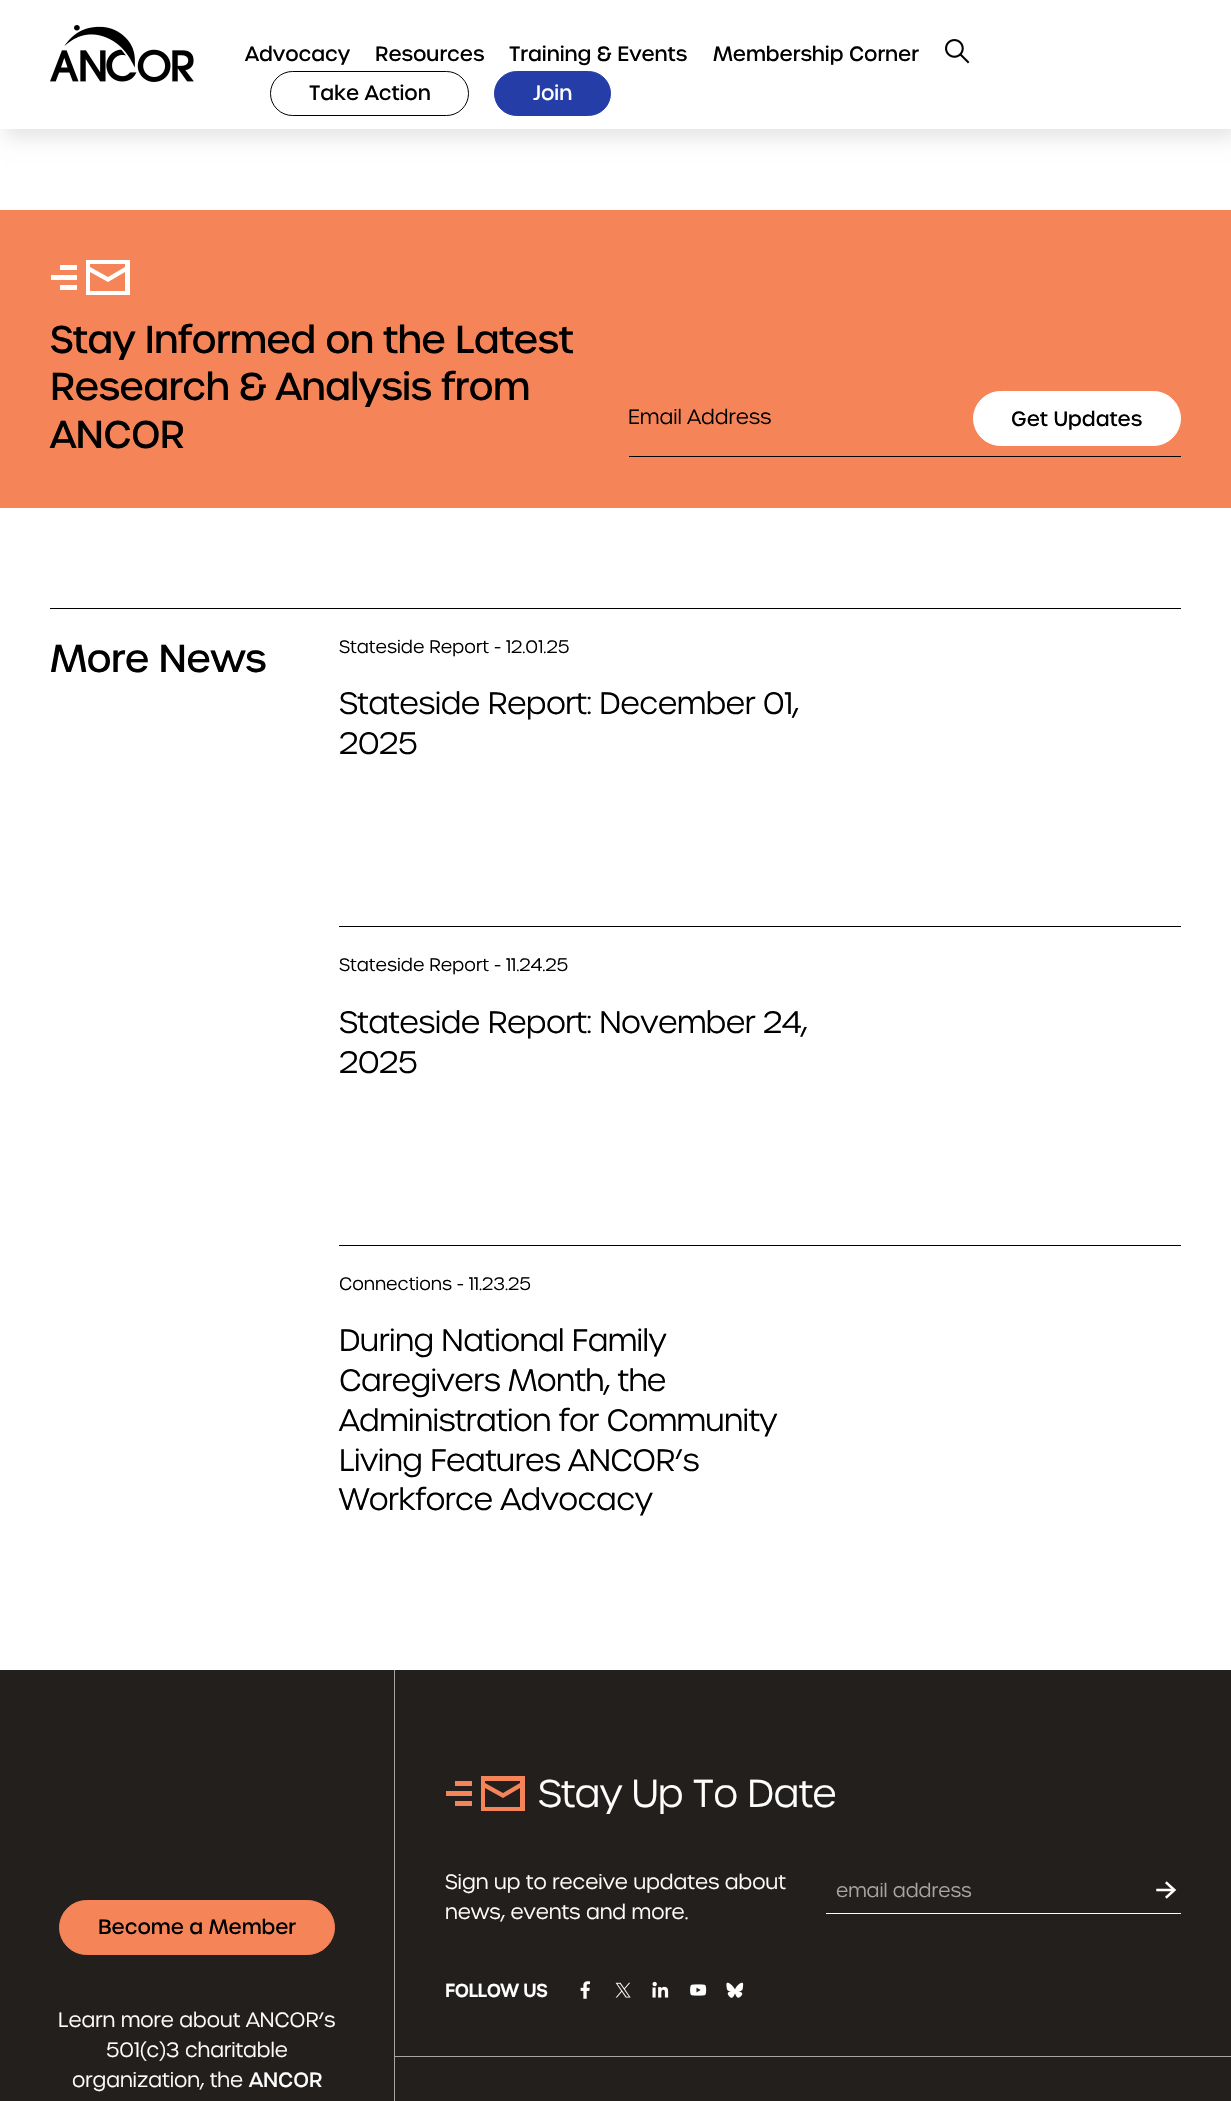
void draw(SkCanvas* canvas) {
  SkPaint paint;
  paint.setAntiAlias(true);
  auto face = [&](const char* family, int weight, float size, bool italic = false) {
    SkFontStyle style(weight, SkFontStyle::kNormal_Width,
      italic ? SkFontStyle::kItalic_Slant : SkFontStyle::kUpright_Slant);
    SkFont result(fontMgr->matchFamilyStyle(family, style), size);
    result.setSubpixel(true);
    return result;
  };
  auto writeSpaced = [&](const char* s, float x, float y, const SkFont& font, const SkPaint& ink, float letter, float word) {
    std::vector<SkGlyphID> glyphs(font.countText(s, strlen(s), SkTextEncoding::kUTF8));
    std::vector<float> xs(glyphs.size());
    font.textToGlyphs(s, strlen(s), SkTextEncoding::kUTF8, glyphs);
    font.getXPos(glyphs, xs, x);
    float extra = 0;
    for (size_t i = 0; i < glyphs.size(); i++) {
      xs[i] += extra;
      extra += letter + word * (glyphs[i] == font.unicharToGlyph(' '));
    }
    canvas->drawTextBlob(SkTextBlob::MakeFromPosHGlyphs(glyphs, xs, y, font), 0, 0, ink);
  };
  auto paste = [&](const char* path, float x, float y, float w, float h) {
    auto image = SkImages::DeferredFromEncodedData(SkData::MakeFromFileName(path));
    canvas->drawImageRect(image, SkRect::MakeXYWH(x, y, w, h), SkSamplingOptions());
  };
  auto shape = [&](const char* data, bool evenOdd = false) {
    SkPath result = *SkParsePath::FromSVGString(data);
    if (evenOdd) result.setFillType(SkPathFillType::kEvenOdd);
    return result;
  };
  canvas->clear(0xffffffff);
  paint.setColor(0x1a000000);
  paint.setMaskFilter(SkMaskFilter::MakeBlur(kNormal_SkBlurStyle, 9));
  canvas->drawRect(SkRect::MakeXYWH(5, 9, 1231, 129), paint);
  paint.setMaskFilter(nullptr);
  paint.setColor(0xffffffff);
  canvas->drawRect(SkRect::MakeXYWH(0, 0, 1231, 129), paint);
  paste("img/1.png", 50, 25, 144, 57);
  paste("img/2.png", 945, 39, 25, 25);
  paint.setStroke(true);
  paint.setStrokeWidth(1);
  paint.setColor(0xff000000);
  canvas->drawRoundRect(SkRect::MakeXYWH(270.5f, 71.5f, 198, 44), 22, 22, paint);
  paint.setStroke(false);
  paint.setColor(0xff253da6);
  canvas->drawRoundRect(SkRect::MakeXYWH(494.5f, 71.5f, 116, 44), 22, 22, paint);
  paint.setStroke(true);
  canvas->drawRoundRect(SkRect::MakeXYWH(494.5f, 71.5f, 116, 44), 22, 22, paint);
  paint.setStroke(false);
  {
    const struct { float x, y, w, h; SkColor color; } items[] = {
      {0, 210, 1231, 298, 0xfff58458},
      {51, 275, 26, 5, 0xffffffff},
      {60, 285, 17, 5, 0xffffffff},
      {60, 265, 17, 5, 0xffffffff},
    };
    for (auto [x, y, w, h, color] : items) {
      paint.setColor(color);
      canvas->drawRect(SkRect::MakeXYWH(x, y, w, h), paint);
    }
  }
  canvas->drawPath(shape("M90 264H125V267L108 277L90 267ZM90 272V291H125V272L108 282ZM86 295V260H130V295Z", true), paint);
  paint.setColor(0xff000000);
  canvas->drawRect(SkRect::MakeXYWH(629, 456, 552, 1), paint);
  paint.setColor(0xffffffff);
  canvas->drawRoundRect(SkRect::MakeXYWH(973.5f, 391.5f, 207, 54), 27, 27, paint);
  paint.setStroke(true);
  canvas->drawRoundRect(SkRect::MakeXYWH(973.5f, 391.5f, 207, 54), 27, 27, paint);
  paint.setStroke(false);
  {
    const struct { float x, y, w, h; SkColor color; } items[] = {
      {50, 608, 1131, 1, 0xff000000},
      {339, 926, 842, 1, 0xff000000},
      {339, 1245, 842, 1, 0xff000000},
      {0, 1670, 1231, 431, 0xff231f1d},
    };
    for (auto [x, y, w, h, color] : items) {
      paint.setColor(color);
      canvas->drawRect(SkRect::MakeXYWH(x, y, w, h), paint);
    }
  }
  paint.setColor(0xfff58458);
  canvas->drawRoundRect(SkRect::MakeXYWH(59.5f, 1900.5f, 275, 54), 27, 27, paint);
  paint.setStroke(true);
  canvas->drawRoundRect(SkRect::MakeXYWH(59.5f, 1900.5f, 275, 54), 27, 27, paint);
  paint.setStroke(false);
  {
    const struct { float x, y, w, h; SkColor color; } items[] = {
      {394, 1670, 1, 431, 0xffa7a5a5},
      {446, 1791, 26, 5, 0xfff58458},
      {455, 1801, 17, 5, 0xfff58458},
      {455, 1781, 17, 5, 0xfff58458},
    };
    for (auto [x, y, w, h, color] : items) {
      paint.setColor(color);
      canvas->drawRect(SkRect::MakeXYWH(x, y, w, h), paint);
    }
  }
  canvas->drawPath(shape("M485 1781H520V1783L503 1793L485 1783ZM485 1788V1807H520V1788L503 1798ZM481 1811V1776H525V1811Z", true), paint);
  paste("img/3.png", 1156, 1881, 21, 18);
  paint.setColor(0xffffffff);
  canvas->drawRect(SkRect::MakeXYWH(826, 1913, 355, 1), paint);
  paste("img/4.png", 580, 1981, 10, 18);
  paste("img/5.png", 615, 1982, 16, 16);
  paste("img/6.png", 652, 1981, 17, 17);
  paste("img/7.png", 690, 1984, 17, 12);
  paste("img/8.png", 726, 1982, 18, 16);
  paint.setColor(0xffa7a5a5);
  canvas->drawRect(SkRect::MakeXYWH(395, 2056, 836, 1), paint);
  auto f0 = face("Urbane", 500, 20);
  paint.setColor(0xff000000);
  {
    const struct { const char* s; float x, y; } items[] = {
      {"Advocacy", 245, 61},
      {"Resources", 375, 61},
      {"Training & Events", 509, 61},
      {"Membership Corner", 713, 61},
      {"Take Action", 309, 100},
    };
    for (auto [s, x, y] : items) {
      writeSpaced(s, x, y, f0, paint, -0.05f, 0);
    }
  }
  paint.setColor(0xffffffff);
  writeSpaced("Join", 533, 100, f0, paint, -0.05f, 0);
  auto f1 = face("Urbane", 500, 37.5f);
  paint.setColor(0xff000000);
  {
    const struct { const char* s; float x, y; } items[] = {
      {"Stay Informed on the Latest", 50, 353},
      {"Research & Analysis from", 50, 400},
      {"ANCOR", 50, 448},
    };
    for (auto [s, x, y] : items) {
      writeSpaced(s, x, y, f1, paint, -0.75f, 0);
    }
  }
  auto f2 = face("Urbane", 300, 20);
  writeSpaced("Email Address", 628, 424, f2, paint, -0.05f, 0);
  writeSpaced("Get Updates", 1011, 426, f0, paint, -0.05f, 0);
  writeSpaced("More News", 50, 672, f1, paint, -0.75f, 0);
  auto f3 = face("Urbane", 300, 17.5f);
  canvas->drawString("Stateside Report - 12.01.25", 339, 653, f3, paint);
  auto f4 = face("Urbane", 300, 30);
  writeSpaced("Stateside Report: December 01,", 339, 714, f4, paint, -0.6f, 0);
  writeSpaced("2025", 339, 754, f4, paint, -0.6f, 0);
  canvas->drawString("Stateside Report - 11.24.25", 339, 971, f3, paint);
  writeSpaced("Stateside Report: November 24,", 339, 1033, f4, paint, -0.6f, 0);
  writeSpaced("2025", 339, 1073, f4, paint, -0.6f, 0);
  canvas->drawString("Connections - 11.23.25", 339, 1290, f3, paint);
  {
    const struct { const char* s; float x, y; } items[] = {
      {"During National Family", 339, 1351},
      {"Caregivers Month, the", 339, 1391},
      {"Administration for Community", 339, 1431},
      {"Living Features ANCOR’s", 339, 1471},
      {"Workforce Advocacy", 339, 1510},
    };
    for (auto [s, x, y] : items) {
      writeSpaced(s, x, y, f4, paint, -0.6f, 0);
    }
  }
  writeSpaced("Become a Member", 98, 1934, f0, paint, -0.05f, 0);
  paint.setColor(0xffffffff);
  {
    const struct { const char* s; float x, y; } items[] = {
      {"Learn more about ANCOR’s", 58, 2027},
      {"501(c)3 charitable", 106, 2057},
      {"organization, the", 72, 2087},
    };
    for (auto [s, x, y] : items) {
      writeSpaced(s, x, y, f2, paint, -0.05f, 0);
    }
  }
  writeSpaced("ANCOR", 249, 2087, f0, paint, -0.05f, 0);
  auto f5 = face("Urbane", 300, 37.5f);
  writeSpaced("Stay Up To Date", 538, 1807, f5, paint, -0.75f, 0);
  writeSpaced("Sign up to receive updates about", 445, 1889, f2, paint, -0.05f, 0);
  writeSpaced("news, events and more.", 445, 1919, f2, paint, -0.05f, 0);
  auto f6 = face("Urbane", 300, 18.75f);
  paint.setColor(0xffa7a5a5);
  writeSpaced("email address", 836, 1897, f6, paint, -0.05f, 0);
  auto f7 = face("Urbane", 700, 17.5f);
  paint.setColor(0xffffffff);
  canvas->drawString("FOLLOW US", 445, 1997, f7, paint);
}
